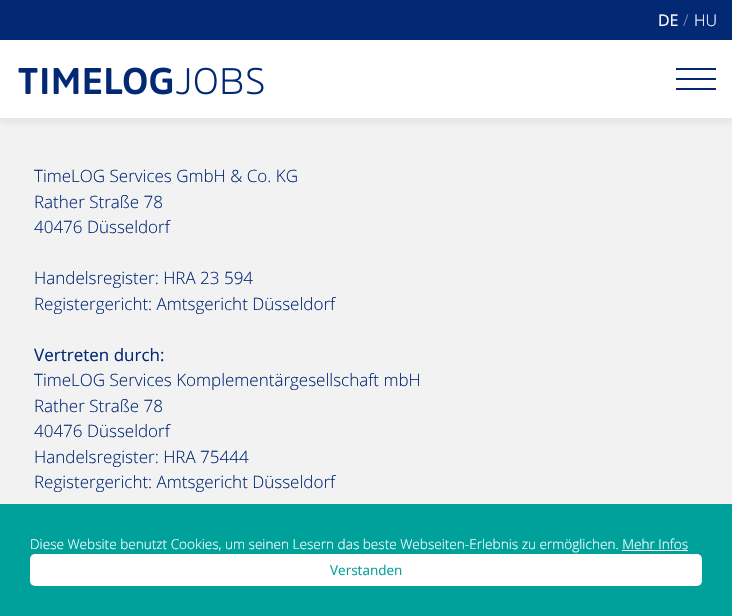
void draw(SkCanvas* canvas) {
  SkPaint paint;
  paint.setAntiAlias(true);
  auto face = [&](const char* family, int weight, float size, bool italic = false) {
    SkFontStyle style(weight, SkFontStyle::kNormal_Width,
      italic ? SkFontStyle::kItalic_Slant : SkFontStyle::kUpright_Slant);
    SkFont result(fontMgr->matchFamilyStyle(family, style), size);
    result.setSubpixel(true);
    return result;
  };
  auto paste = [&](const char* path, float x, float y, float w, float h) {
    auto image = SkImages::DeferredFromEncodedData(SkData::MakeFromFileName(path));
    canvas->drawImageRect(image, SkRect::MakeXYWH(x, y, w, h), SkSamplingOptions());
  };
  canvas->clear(0xfff2f2f2);
  paint.setColor(0xff032975);
  canvas->drawRect(SkRect::MakeXYWH(0, 0, 732, 40), paint);
  paint.setColor(0x0d000000);
  paint.setMaskFilter(SkMaskFilter::MakeBlur(kNormal_SkBlurStyle, 2.5f));
  canvas->drawRect(SkRect::MakeXYWH(0, 45, 732, 78), paint);
  paint.setMaskFilter(nullptr);
  paint.setColor(0xffffffff);
  canvas->drawRect(SkRect::MakeXYWH(0, 40, 732, 78), paint);
  paste("img/1.png", 18, 67, 246, 28);
  {
    const struct { float x, y, w, h; SkColor color; } items[] = {
      {676, 78, 40, 2, 0xff032975},
      {676, 68, 40, 2, 0xff032975},
      {676, 88, 40, 2, 0xff032975},
      {0, 504, 732, 112, 0xff00a19a},
      {622, 550, 66, 1, 0xffffffff},
    };
    for (auto [x, y, w, h, color] : items) {
      paint.setColor(color);
      canvas->drawRect(SkRect::MakeXYWH(x, y, w, h), paint);
    }
  }
  canvas->drawRoundRect(SkRect::MakeXYWH(30, 554, 672, 32), 5, 5, paint);
  auto f0 = face("Open Sans", 400, 16);
  canvas->drawString("DE", 658, 26, f0, paint);
  auto f1 = face("Open Sans", 300, 16);
  paint.setColor(0xff8194ba);
  canvas->drawString("/", 683, 26, f1, paint);
  paint.setColor(0xffffffff);
  canvas->drawString("HU", 694, 26, f1, paint);
  auto f2 = face("Open Sans", 300, 17);
  paint.setColor(0xff032975);
  {
    const struct { const char* s; float x, y; } items[] = {
      {"TimeLOG Services GmbH & Co. KG", 34, 182},
      {"Rather Straße 78", 34, 208},
      {"40476 Düsseldorf", 34, 233},
      {"Handelsregister: HRA 23 594", 34, 284},
      {"Registergericht: Amtsgericht Düsseldorf", 34, 310},
    };
    for (auto [s, x, y] : items) {
      canvas->drawString(s, x, y, f2, paint);
    }
  }
  auto f3 = face("Open Sans", 400, 17);
  canvas->drawString("Vertreten durch:", 34, 361, f3, paint);
  {
    const struct { const char* s; float x, y; } items[] = {
      {"TimeLOG Services Komplementärgesellschaft mbH", 34, 386},
      {"Rather Straße 78", 34, 412},
      {"40476 Düsseldorf", 34, 437},
      {"Handelsregister: HRA 75444", 34, 463},
      {"Registergericht: Amtsgericht Düsseldorf", 34, 488},
    };
    for (auto [s, x, y] : items) {
      canvas->drawString(s, x, y, f2, paint);
    }
  }
  auto f4 = face("Open Sans", 300, 13.6f);
  paint.setColor(0xffffffff);
  canvas->drawString("Diese Website benutzt Cookies, um seinen Lesern das beste Webseiten-Erlebnis zu ermöglichen. Mehr Infos", 30, 549, f4, paint);
  auto f5 = face("Open Sans", 400, 13.5f);
  paint.setColor(0xff00a19a);
  canvas->drawString("Verstanden", 330, 575, f5, paint);
}
